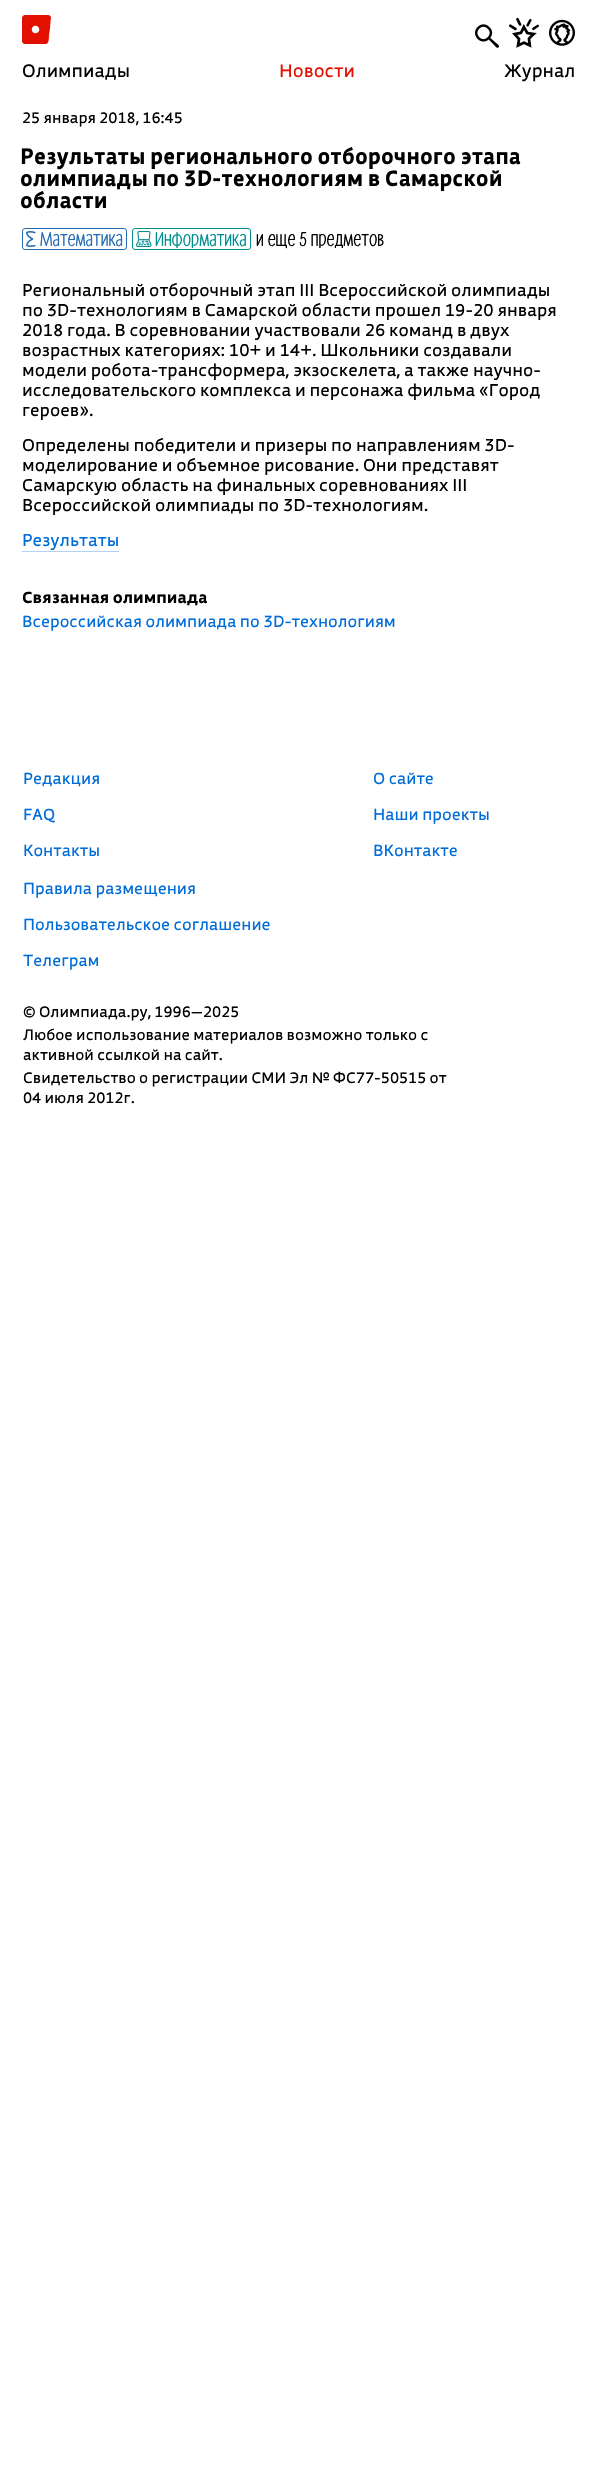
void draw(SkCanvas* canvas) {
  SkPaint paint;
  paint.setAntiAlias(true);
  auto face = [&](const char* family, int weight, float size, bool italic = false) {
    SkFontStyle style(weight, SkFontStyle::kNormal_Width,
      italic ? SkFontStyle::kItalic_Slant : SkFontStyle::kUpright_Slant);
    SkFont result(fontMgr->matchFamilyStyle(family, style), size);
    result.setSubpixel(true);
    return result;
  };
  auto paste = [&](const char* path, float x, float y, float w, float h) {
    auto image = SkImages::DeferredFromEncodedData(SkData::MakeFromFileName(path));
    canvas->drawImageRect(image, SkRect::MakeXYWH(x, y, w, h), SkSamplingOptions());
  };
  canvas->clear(0xffffffff);
  paste("img/1.png", 22, 15, 29, 29);
  paste("img/2.png", 475, 24, 24, 24);
  paste("img/3.png", 509, 17, 30, 31);
  paste("img/4.png", 549, 19, 26, 27);
  paint.setStroke(true);
  paint.setStrokeWidth(1);
  paint.setColor(0xff246bb2);
  canvas->drawRoundRect(SkRect::MakeXYWH(22.5f, 228.5f, 104, 21), 2.5f, 2.5f, paint);
  paste("img/5.png", 26, 231, 10, 16);
  paint.setColor(0xff008e8f);
  canvas->drawRoundRect(SkRect::MakeXYWH(132.5f, 228.5f, 118, 21), 2.5f, 2.5f, paint);
  paste("img/6.png", 136, 231, 16, 16);
  paint.setStroke(false);
  paint.setColor(0xffb3d3f4);
  canvas->drawRect(SkRect::MakeXYWH(22, 551, 97, 1), paint);
  auto f0 = face("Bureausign", 400, 18);
  paint.setColor(0xff000000);
  canvas->drawString("Олимпиады", 22, 77, f0, paint);
  paint.setColor(0xffe11000);
  canvas->drawString("Новости", 279, 77, f0, paint);
  paint.setColor(0xff000000);
  canvas->drawString("Журнал", 504, 77, f0, paint);
  auto f1 = face("Bureausign", 400, 15);
  canvas->drawString("25 января 2018, 16:45", 22, 123, f1, paint);
  auto f2 = face("Bureausign", 700, 22);
  {
    const struct { const char* s; float x, y; } items[] = {
      {"Результаты регионального отборочного этапа", 20, 164},
      {"олимпиады по 3D-технологиям в Самарской", 20, 186},
      {"области", 20, 208},
    };
    for (auto [s, x, y] : items) {
      canvas->drawString(s, x, y, f2, paint);
    }
  }
  auto f3 = face("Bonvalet", 400, 20);
  paint.setColor(0xff246bb2);
  canvas->drawString("Математика", 40, 246, f3, paint);
  paint.setColor(0xff008e8f);
  canvas->drawString("Информатика", 155, 246, f3, paint);
  paint.setColor(0xff000000);
  canvas->drawString("и еще 5 предметов", 256, 246, f3, paint);
  auto f4 = face("Bureausign", 400, 17);
  {
    const struct { const char* s; float x, y; } items[] = {
      {"Региональный отборочный этап III Всероссийской олимпиады", 22, 296},
      {"по 3D-технологиям в Самарской области прошел 19-20 января", 22, 316},
      {"2018 года. В соревновании участвовали 26 команд в двух", 22, 336},
      {"возрастных категориях: 10+ и 14+. Школьники создавали", 22, 356},
      {"модели робота-трансформера, экзоскелета, а также научно-", 22, 376},
      {"исследовательского комплекса и персонажа фильма «Город", 22, 396},
      {"героев».", 22, 416},
      {"Определены победители и призеры по направлениям 3D-", 22, 451},
      {"моделирование и объемное рисование. Они представят", 22, 471},
      {"Самарскую область на финальных соревнованиях III", 22, 491},
      {"Всероссийской олимпиады по 3D-технологиям.", 22, 511},
    };
    for (auto [s, x, y] : items) {
      canvas->drawString(s, x, y, f4, paint);
    }
  }
  paint.setColor(0xff006cd9);
  canvas->drawString("Результаты", 22, 546, f4, paint);
  auto f5 = face("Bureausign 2", 700, 16);
  paint.setColor(0xff000000);
  canvas->drawString("Связанная олимпиада", 22, 603, f5, paint);
  auto f6 = face("Bureausign", 400, 16);
  paint.setColor(0xff006cd9);
  {
    const struct { const char* s; float x, y; } items[] = {
      {"Всероссийская олимпиада по 3D-технологиям", 22, 627},
      {"Редакция", 23, 784},
      {"FAQ", 23, 820},
      {"Контакты", 23, 856},
      {"О сайте", 373, 784},
      {"Наши проекты", 373, 820},
      {"ВКонтакте", 373, 856},
      {"Правила размещения", 23, 894},
      {"Пользовательское соглашение", 23, 930},
      {"Телеграм", 23, 966},
    };
    for (auto [s, x, y] : items) {
      canvas->drawString(s, x, y, f6, paint);
    }
  }
  paint.setColor(0xff000000);
  {
    const struct { const char* s; float x, y; } items[] = {
      {"© Олимпиада.ру, 1996—2025", 23, 1017},
      {"Любое использование материалов возможно только с", 23, 1040},
      {"активной ссылкой на сайт.", 23, 1060},
      {"Свидетельство о регистрации СМИ Эл № ФС77-50515 от", 23, 1083},
      {"04 июля 2012г.", 23, 1103},
    };
    for (auto [s, x, y] : items) {
      canvas->drawString(s, x, y, f1, paint);
    }
  }
}
